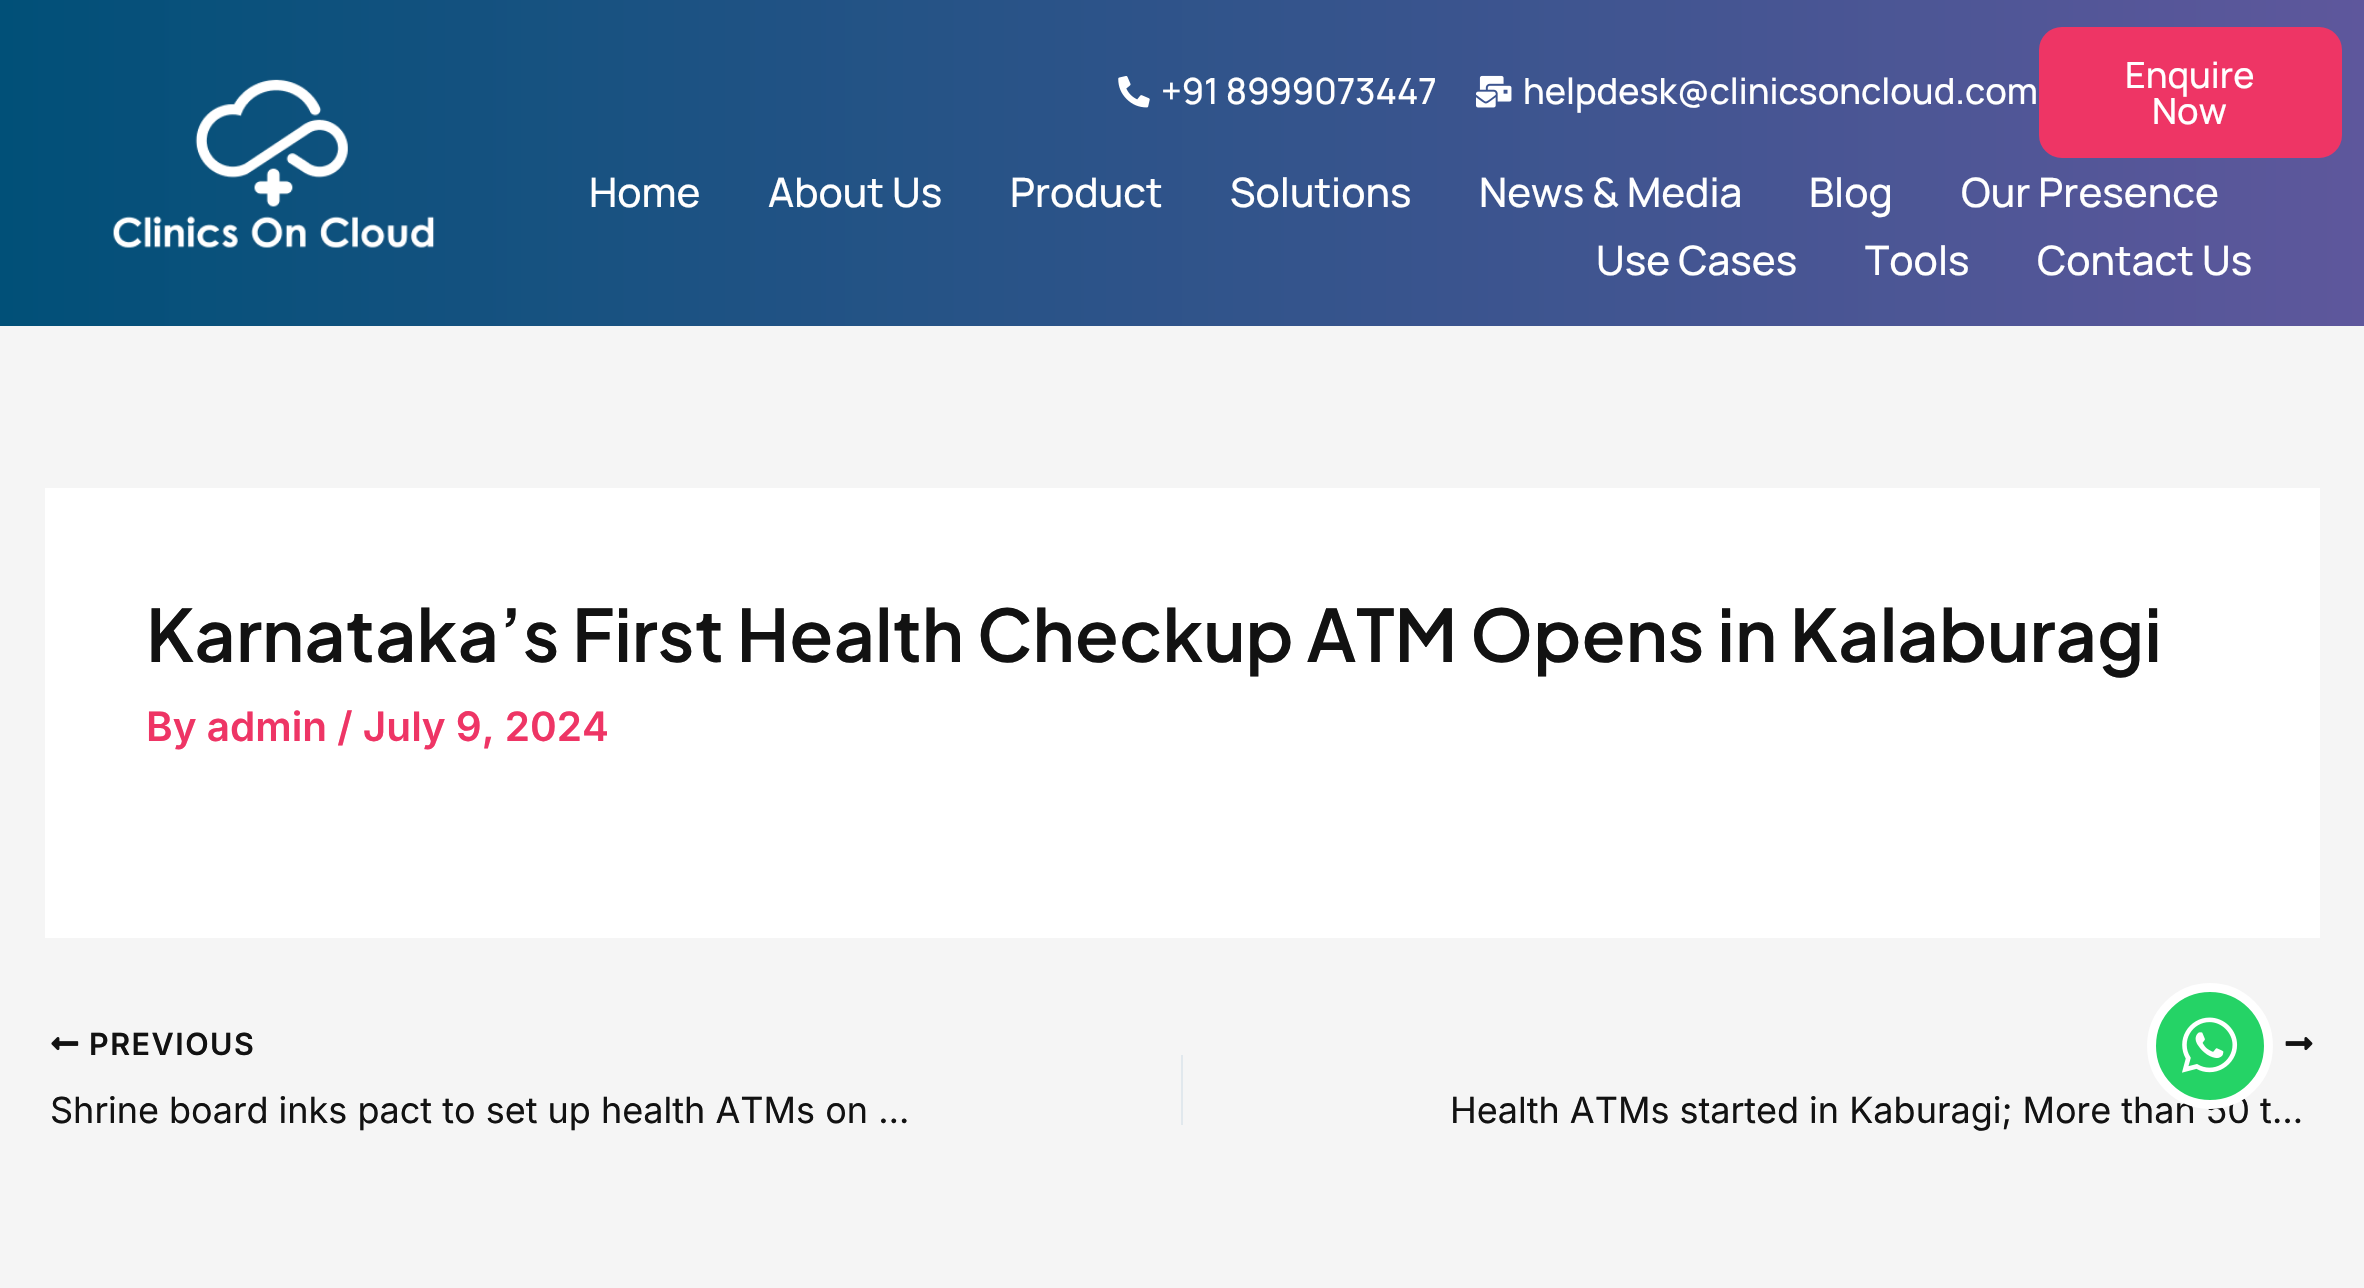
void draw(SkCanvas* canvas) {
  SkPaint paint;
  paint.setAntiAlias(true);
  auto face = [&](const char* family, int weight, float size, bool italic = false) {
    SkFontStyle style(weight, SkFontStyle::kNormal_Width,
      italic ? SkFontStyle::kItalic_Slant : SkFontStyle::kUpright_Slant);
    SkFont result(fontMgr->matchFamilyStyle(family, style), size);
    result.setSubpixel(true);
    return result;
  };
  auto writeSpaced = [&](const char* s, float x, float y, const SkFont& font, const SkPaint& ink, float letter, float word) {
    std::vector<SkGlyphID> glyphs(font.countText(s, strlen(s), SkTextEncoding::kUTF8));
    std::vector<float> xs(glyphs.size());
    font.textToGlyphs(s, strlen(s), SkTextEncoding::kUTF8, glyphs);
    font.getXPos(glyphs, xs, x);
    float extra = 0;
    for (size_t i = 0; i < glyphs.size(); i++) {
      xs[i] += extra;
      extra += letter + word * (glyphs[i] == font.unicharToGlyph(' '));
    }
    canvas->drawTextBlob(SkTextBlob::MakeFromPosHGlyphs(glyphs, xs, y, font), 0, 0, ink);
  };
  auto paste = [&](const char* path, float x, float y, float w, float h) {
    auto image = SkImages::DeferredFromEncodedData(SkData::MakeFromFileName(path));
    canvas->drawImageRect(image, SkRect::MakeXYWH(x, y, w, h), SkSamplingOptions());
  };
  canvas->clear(0xfff5f5f5);
  {
    const SkColor colors[] = {0xff015078, 0xff5e579c};
    const float stops[] = {0, 1};
    const SkPoint ends[] = {{0, 160}, {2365, 160}};
    paint.setShader(SkGradientShader::MakeLinear(ends, colors, stops, 2, SkTileMode::kClamp));
    paint.setAlpha(255);
  }
  canvas->drawRect(SkRect::MakeXYWH(0, 0, 2364, 326), paint);
  paste("img/1.png", 1118, 76, 32, 32);
  paste("img/2.png", 1476, 75, 36, 33);
  paint.setShader(nullptr);
  paint.setColor(0xffee3565);
  canvas->drawRoundRect(SkRect::MakeXYWH(2040, 28, 301, 129), 22, 22, paint);
  paint.setStroke(true);
  paint.setStrokeWidth(2);
  canvas->drawRoundRect(SkRect::MakeXYWH(2040, 28, 301, 129), 22, 22, paint);
  paste("img/3.png", 113, 79, 322, 169);
  paint.setStroke(false);
  paint.setColor(0xffffffff);
  canvas->drawRect(SkRect::MakeXYWH(45, 488, 2275, 450), paint);
  paste("img/4.png", 51, 1037, 28, 14);
  paint.setColor(0xffe1e8ed);
  canvas->drawRect(SkRect::MakeXYWH(1181, 1055, 2, 70), paint);
  paste("img/5.png", 2285, 1037, 28, 14);
  auto f0 = face("Manrope", 500, 36);
  paint.setColor(0xffffffff);
  {
    const struct { const char* s; float x, y; } items[] = {
      {"+91 8999073447", 1161, 104},
      {"helpdesk@clinicsoncloud.com", 1523, 104},
      {"Enquire", 2125, 88},
      {"Now", 2152, 124},
    };
    for (auto [s, x, y] : items) {
      canvas->drawString(s, x, y, f0, paint);
    }
  }
  auto f1 = face("Manrope", 500, 40.5f);
  {
    const struct { const char* s; float x, y; } items[] = {
      {"Home", 589, 207},
      {"About Us", 768, 207},
      {"Product", 1010, 207},
      {"Solutions", 1230, 207},
      {"News & Media", 1479, 207},
      {"Blog", 1809, 207},
      {"Our Presence", 1961, 207},
      {"Use Cases", 1596, 275},
      {"Tools", 1865, 275},
      {"Contact Us", 2037, 275},
    };
    for (auto [s, x, y] : items) {
      canvas->drawString(s, x, y, f1, paint);
    }
  }
  auto f2 = face("Plus Jakarta Sans", 600, 72);
  paint.setColor(0xff121212);
  canvas->drawString("Karnataka’s First Health Checkup ATM Opens in Kalaburagi", 146, 662, f2, paint);
  auto f3 = face("Inter", 600, 40.5f);
  paint.setColor(0xffee3565);
  canvas->drawString("By admin / July 9, 2024", 146, 741, f3, paint);
  auto f4 = face("Inter", 600, 30.5f);
  paint.setColor(0xff121212);
  writeSpaced("PREVIOUS", 89, 1055, f4, paint, 1.5f, 0);
  auto f5 = face("Inter", 400, 36);
  canvas->drawString("Shrine board inks pact to set up health ATMs on …", 50, 1123, f5, paint);
  canvas->drawString("Health ATMs started in Kaburagi; More than 50 t…", 1450, 1123, f5, paint);
  paint.setColor(0xff25d366);
  canvas->drawCircle(2210, 1046, 58.5f, paint);
  paint.setStroke(true);
  paint.setStrokeWidth(9);
  paint.setColor(0xffffffff);
  canvas->drawCircle(2210, 1046, 58.5f, paint);
  paste("img/6.png", 2182, 1017, 56, 56);
}
